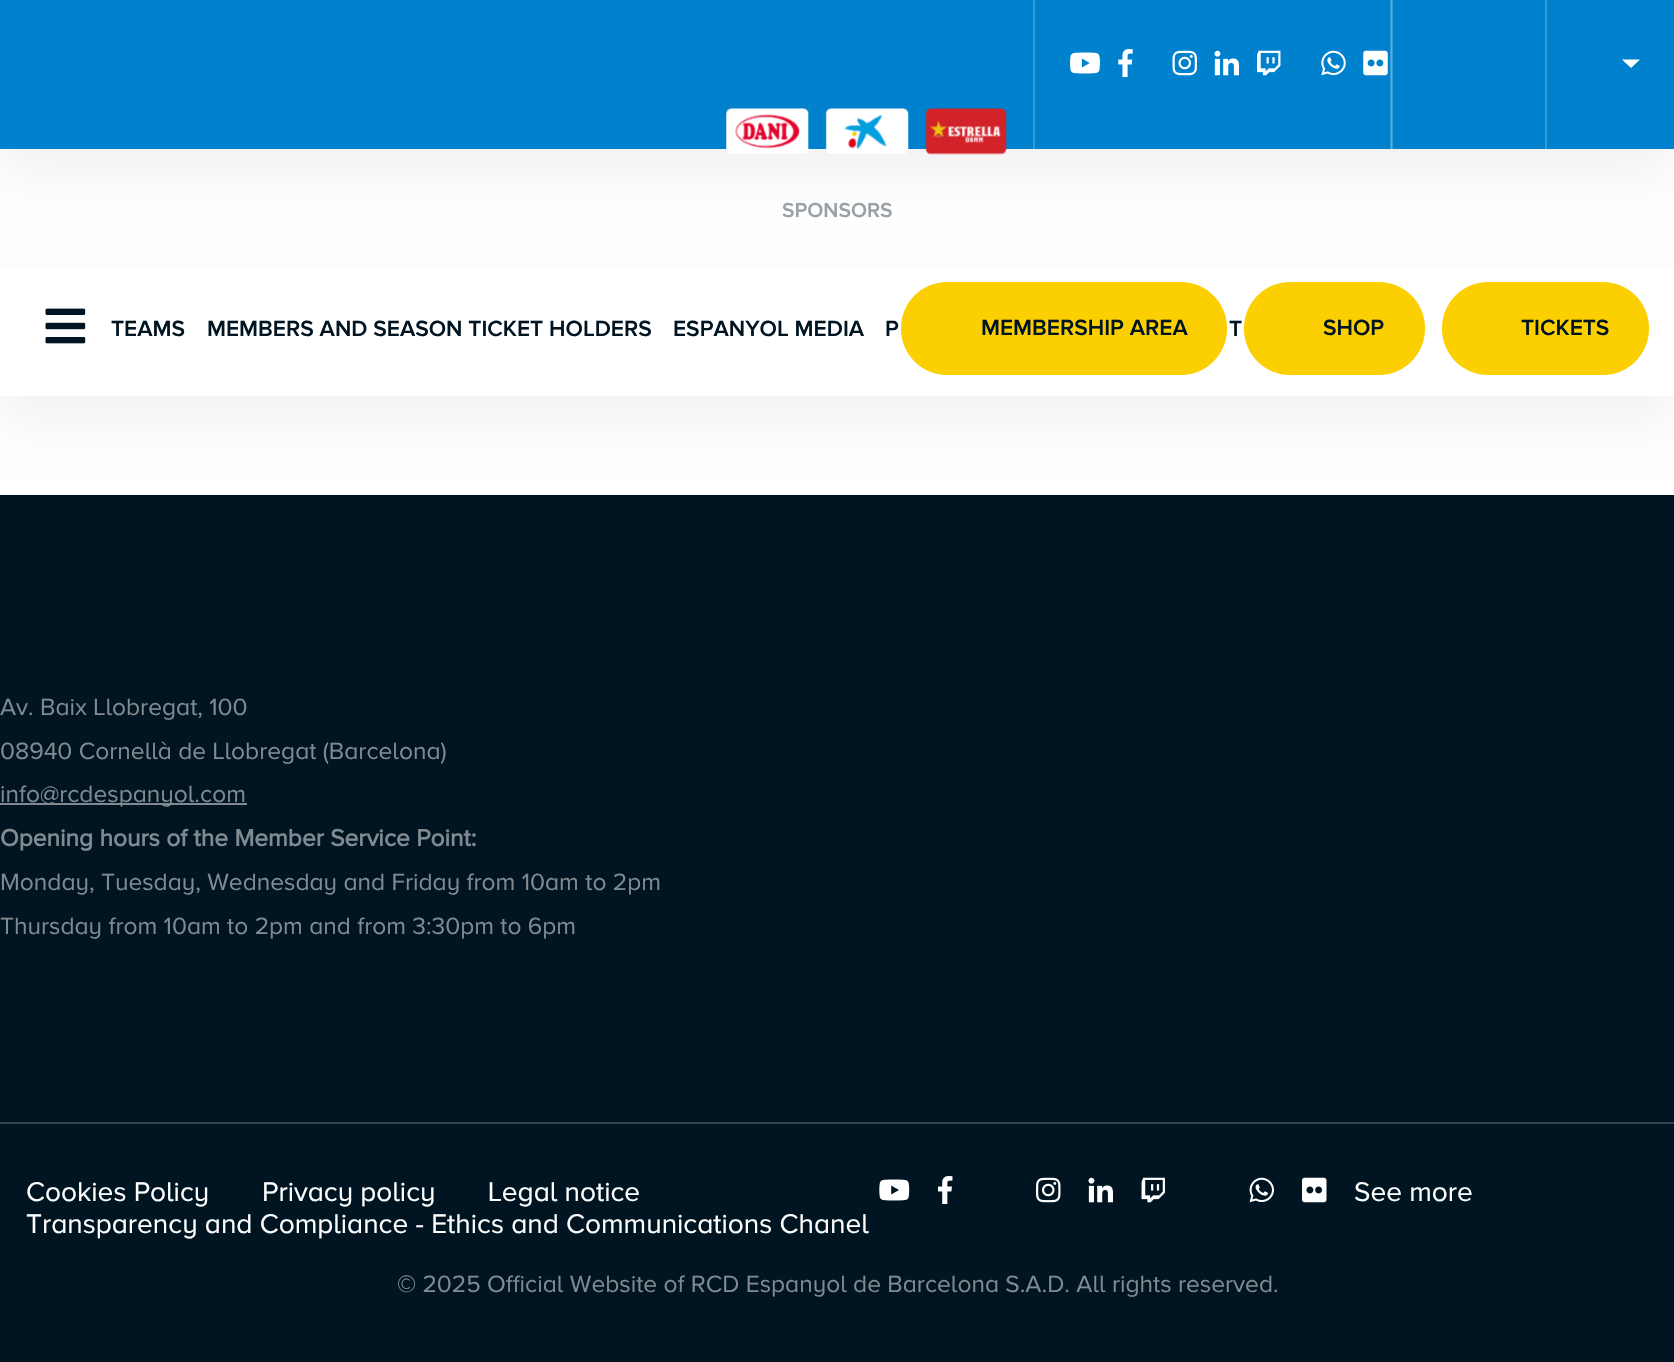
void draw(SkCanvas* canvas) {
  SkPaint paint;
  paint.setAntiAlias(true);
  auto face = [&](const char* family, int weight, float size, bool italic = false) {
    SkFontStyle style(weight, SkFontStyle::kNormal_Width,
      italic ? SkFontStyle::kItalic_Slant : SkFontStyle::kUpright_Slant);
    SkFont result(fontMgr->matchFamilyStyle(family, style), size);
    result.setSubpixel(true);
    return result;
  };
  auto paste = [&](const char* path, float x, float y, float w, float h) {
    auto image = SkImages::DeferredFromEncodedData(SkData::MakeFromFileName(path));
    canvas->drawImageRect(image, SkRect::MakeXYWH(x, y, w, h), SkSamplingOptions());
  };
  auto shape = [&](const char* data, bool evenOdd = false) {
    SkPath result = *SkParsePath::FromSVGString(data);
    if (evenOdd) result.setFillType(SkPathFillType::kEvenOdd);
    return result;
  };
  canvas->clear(0xff001521);
  paint.setColor(0xffffffff);
  canvas->drawRect(SkRect::MakeXYWH(0, 149, 1674, 346), paint);
  paint.setColor(0x0d000000);
  paint.setMaskFilter(SkMaskFilter::MakeBlur(kNormal_SkBlurStyle, 26));
  canvas->drawRect(SkRect::MakeXYWH(0, 26, 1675, 149), paint);
  paint.setMaskFilter(nullptr);
  {
    const struct { float x, y, w, h; SkColor color; } items[] = {
      {0, 0, 1674, 149, 0xff0081cd},
      {1390, 0, 2, 149, 0x33ffffff},
      {1033, 0, 2, 149, 0x33ffffff},
    };
    for (auto [x, y, w, h, color] : items) {
      paint.setColor(color);
      canvas->drawRect(SkRect::MakeXYWH(x, y, w, h), paint);
    }
  }
  paste("img/1.png", 1070, 52, 30, 22);
  paste("img/2.png", 1118, 49, 15, 28);
  paste("img/3.png", 1172, 50, 25, 26);
  paste("img/4.png", 1214, 50, 25, 26);
  paste("img/5.png", 1257, 50, 24, 26);
  paste("img/6.png", 1321, 50, 25, 26);
  paste("img/7.png", 1363, 50, 25, 26);
  canvas->drawRect(SkRect::MakeXYWH(1545, 0, 2, 149), paint);
  canvas->drawRect(SkRect::MakeXYWH(1391, 0, 2, 149), paint);
  paint.setColor(0xffffffff);
  canvas->drawPath(shape("M1622 59.5H1640L1631 68Z"), paint);
  paste("img/8.png", 726, 108, 83, 46);
  paste("img/9.png", 825, 108, 84, 46);
  paste("img/10.png", 925, 108, 82, 47);
  paint.setColor(0x0d000000);
  paint.setMaskFilter(SkMaskFilter::MakeBlur(kNormal_SkBlurStyle, 26));
  canvas->drawRect(SkRect::MakeXYWH(0, 289, 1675, 133), paint);
  paint.setMaskFilter(nullptr);
  paint.setColor(0xffffffff);
  canvas->drawRect(SkRect::MakeXYWH(0, 267, 1674, 129), paint);
  paste("img/11.png", 45, 308, 41, 36);
  paint.setColor(0xfffccf00);
  canvas->drawRoundRect(SkRect::MakeXYWH(901, 282, 326, 93), 46, 46, paint);
  canvas->drawRoundRect(SkRect::MakeXYWH(1244, 282, 181, 93), 46, 46, paint);
  canvas->drawRoundRect(SkRect::MakeXYWH(1442, 282, 207, 93), 46, 46, paint);
  paint.setColor(0xff808a90);
  canvas->drawRect(SkRect::MakeXYWH(0, 803, 247, 2), paint);
  paint.setColor(0xff33444d);
  canvas->drawRect(SkRect::MakeXYWH(0, 1122, 1674, 2), paint);
  paste("img/12.png", 879, 1179, 31, 22);
  paste("img/13.png", 938, 1176, 15, 28);
  paste("img/14.png", 1036, 1177, 25, 26);
  paste("img/15.png", 1088, 1177, 25, 26);
  paste("img/16.png", 1141, 1177, 24, 26);
  paste("img/17.png", 1249, 1177, 25, 26);
  paste("img/18.png", 1302, 1177, 25, 26);
  auto f0 = face("Proxima Nova", 600, 21);
  paint.setColor(0xff99a1a6);
  canvas->drawString("SPONSORS", 782, 217, f0, paint);
  auto f1 = face("Proxima Nova", 600, 22.75f);
  paint.setColor(0xff001521);
  {
    const struct { const char* s; float x, y; } items[] = {
      {"TEAMS", 111, 336},
      {"MEMBERS AND SEASON TICKET HOLDERS", 207, 336},
      {"ESPANYOL MEDIA", 673, 336},
      {"P", 885, 336},
      {"T", 1229, 336},
      {"MEMBERSHIP AREA", 981, 335},
      {"SHOP", 1323, 335},
      {"TICKETS", 1521, 335},
    };
    for (auto [s, x, y] : items) {
      canvas->drawString(s, x, y, f1, paint);
    }
  }
  auto f2 = face("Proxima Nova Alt", 400, 24.5f);
  paint.setColor(0xff808a90);
  {
    const struct { const char* s; float x, y; } items[] = {
      {"Av. Baix Llobregat, 100", 0, 715},
      {"08940 Cornellà de Llobregat (Barcelona)", 0, 759},
      {"info@rcdespanyol.com", 0, 802},
    };
    for (auto [s, x, y] : items) {
      canvas->drawString(s, x, y, f2, paint);
    }
  }
  auto f3 = face("Proxima Nova Alt", 700, 24.5f);
  canvas->drawString("Opening hours of the Member Service Point:", 0, 846, f3, paint);
  canvas->drawString("Monday, Tuesday, Wednesday and Friday from 10am to 2pm", 0, 890, f2, paint);
  canvas->drawString("Thursday from 10am to 2pm and from 3:30pm to 6pm", 0, 934, f2, paint);
  auto f4 = face("Proxima Nova Alt", 400, 28);
  paint.setColor(0xffffffff);
  {
    const struct { const char* s; float x, y; } items[] = {
      {"Cookies Policy", 26, 1201},
      {"Privacy policy", 262, 1201},
      {"Legal notice", 488, 1201},
      {"Transparency and Compliance - Ethics and Communications Chanel", 26, 1233},
      {"See more", 1354, 1201},
    };
    for (auto [s, x, y] : items) {
      canvas->drawString(s, x, y, f4, paint);
    }
  }
  paint.setColor(0xff808a90);
  canvas->drawString("© 2025 Official Website of RCD Espanyol de Barcelona S.A.D. All rights reserved.", 397, 1292, f2, paint);
}
